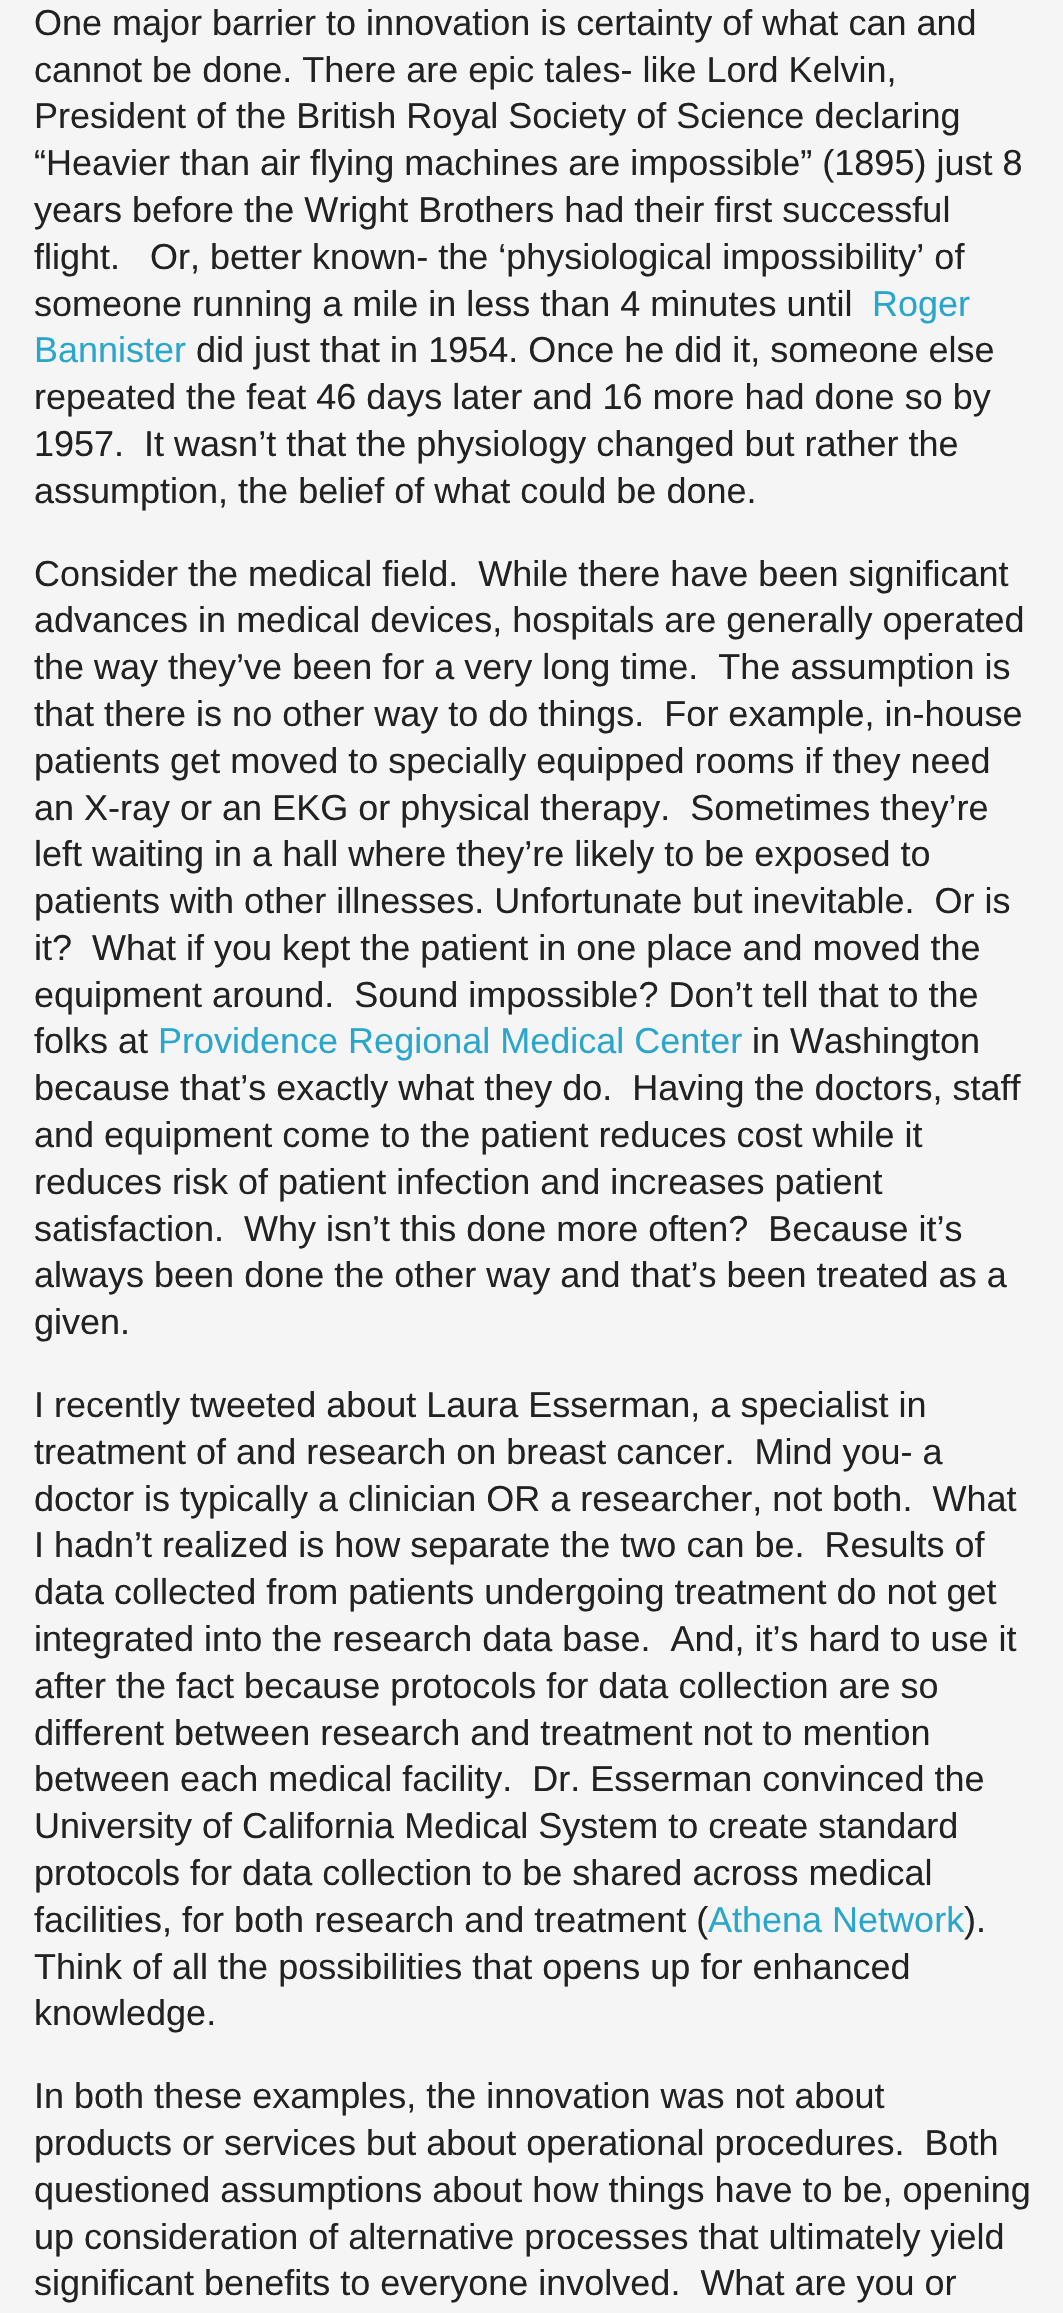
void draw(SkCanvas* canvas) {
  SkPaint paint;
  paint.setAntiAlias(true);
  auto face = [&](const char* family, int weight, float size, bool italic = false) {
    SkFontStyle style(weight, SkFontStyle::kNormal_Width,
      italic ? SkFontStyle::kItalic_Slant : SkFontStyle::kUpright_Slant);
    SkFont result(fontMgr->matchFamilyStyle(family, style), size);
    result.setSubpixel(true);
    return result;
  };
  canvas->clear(0xfff5f5f5);
  auto f0 = face("Liberation Sans", 400, 36);
  paint.setColor(0xff222222);
  {
    const struct { const char* s; float x, y; } items[] = {
      {"One major barrier to innovation is certainty of what can and", 34, 35},
      {"cannot be done. There are epic tales- like Lord Kelvin,", 34, 82},
      {"President of the British Royal Society of Science declaring", 34, 128},
      {"“Heavier than air flying machines are impossible” (1895) just 8", 34, 175},
      {"years before the Wright Brothers had their first successful", 34, 222},
      {"flight.   Or, better known- the ‘physiological impossibility’ of", 34, 269},
      {"someone running a mile in less than 4 minutes until", 34, 316},
    };
    for (auto [s, x, y] : items) {
      canvas->drawString(s, x, y, f0, paint);
    }
  }
  paint.setColor(0xff2ba6cb);
  canvas->drawString("Roger", 872, 316, f0, paint);
  canvas->drawString("Bannister", 34, 362, f0, paint);
  paint.setColor(0xff222222);
  {
    const struct { const char* s; float x, y; } items[] = {
      {"did just that in 1954. Once he did it, someone else", 196, 362},
      {"repeated the feat 46 days later and 16 more had done so by", 34, 409},
      {"1957.  It wasn’t that the physiology changed but rather the", 34, 456},
      {"assumption, the belief of what could be done.", 34, 503},
      {"Consider the medical field.  While there have been significant", 34, 586},
      {"advances in medical devices, hospitals are generally operated", 34, 632},
      {"the way they’ve been for a very long time.  The assumption is", 34, 679},
      {"that there is no other way to do things.  For example, in-house", 34, 726},
      {"patients get moved to specially equipped rooms if they need", 34, 773},
      {"an X-ray or an EKG or physical therapy.  Sometimes they’re", 34, 820},
      {"left waiting in a hall where they’re likely to be exposed to", 34, 866},
      {"patients with other illnesses. Unfortunate but inevitable.  Or is", 34, 913},
      {"it?  What if you kept the patient in one place and moved the", 34, 960},
      {"equipment around.  Sound impossible? Don’t tell that to the", 34, 1007},
      {"folks at", 34, 1053},
    };
    for (auto [s, x, y] : items) {
      canvas->drawString(s, x, y, f0, paint);
    }
  }
  paint.setColor(0xff2ba6cb);
  canvas->drawString("Providence Regional Medical Center", 158, 1053, f0, paint);
  paint.setColor(0xff222222);
  {
    const struct { const char* s; float x, y; } items[] = {
      {"in Washington", 752, 1053},
      {"because that’s exactly what they do.  Having the doctors, staff", 34, 1100},
      {"and equipment come to the patient reduces cost while it", 34, 1147},
      {"reduces risk of patient infection and increases patient", 34, 1194},
      {"satisfaction.  Why isn’t this done more often?  Because it’s", 34, 1241},
      {"always been done the other way and that’s been treated as a", 34, 1287},
      {"given.", 34, 1334},
      {"I recently tweeted about Laura Esserman, a specialist in", 34, 1417},
      {"treatment of and research on breast cancer.  Mind you- a", 34, 1464},
      {"doctor is typically a clinician OR a researcher, not both.  What", 34, 1511},
      {"I hadn’t realized is how separate the two can be.  Results of", 34, 1557},
      {"data collected from patients undergoing treatment do not get", 34, 1604},
      {"integrated into the research data base.  And, it’s hard to use it", 34, 1651},
      {"after the fact because protocols for data collection are so", 34, 1698},
      {"different between research and treatment not to mention", 34, 1745},
      {"between each medical facility.  Dr. Esserman convinced the", 34, 1791},
      {"University of California Medical System to create standard", 34, 1838},
      {"protocols for data collection to be shared across medical", 34, 1885},
      {"facilities, for both research and treatment (", 34, 1932},
    };
    for (auto [s, x, y] : items) {
      canvas->drawString(s, x, y, f0, paint);
    }
  }
  paint.setColor(0xff2ba6cb);
  canvas->drawString("Athena Network", 708, 1932, f0, paint);
  paint.setColor(0xff222222);
  {
    const struct { const char* s; float x, y; } items[] = {
      {").", 964, 1932},
      {"Think of all the possibilities that opens up for enhanced", 34, 1979},
      {"knowledge.", 34, 2025},
      {"In both these examples, the innovation was not about", 34, 2108},
      {"products or services but about operational procedures.  Both", 34, 2155},
      {"questioned assumptions about how things have to be, opening", 34, 2202},
      {"up consideration of alternative processes that ultimately yield", 34, 2249},
      {"significant benefits to everyone involved.  What are you or", 34, 2295},
    };
    for (auto [s, x, y] : items) {
      canvas->drawString(s, x, y, f0, paint);
    }
  }
}
